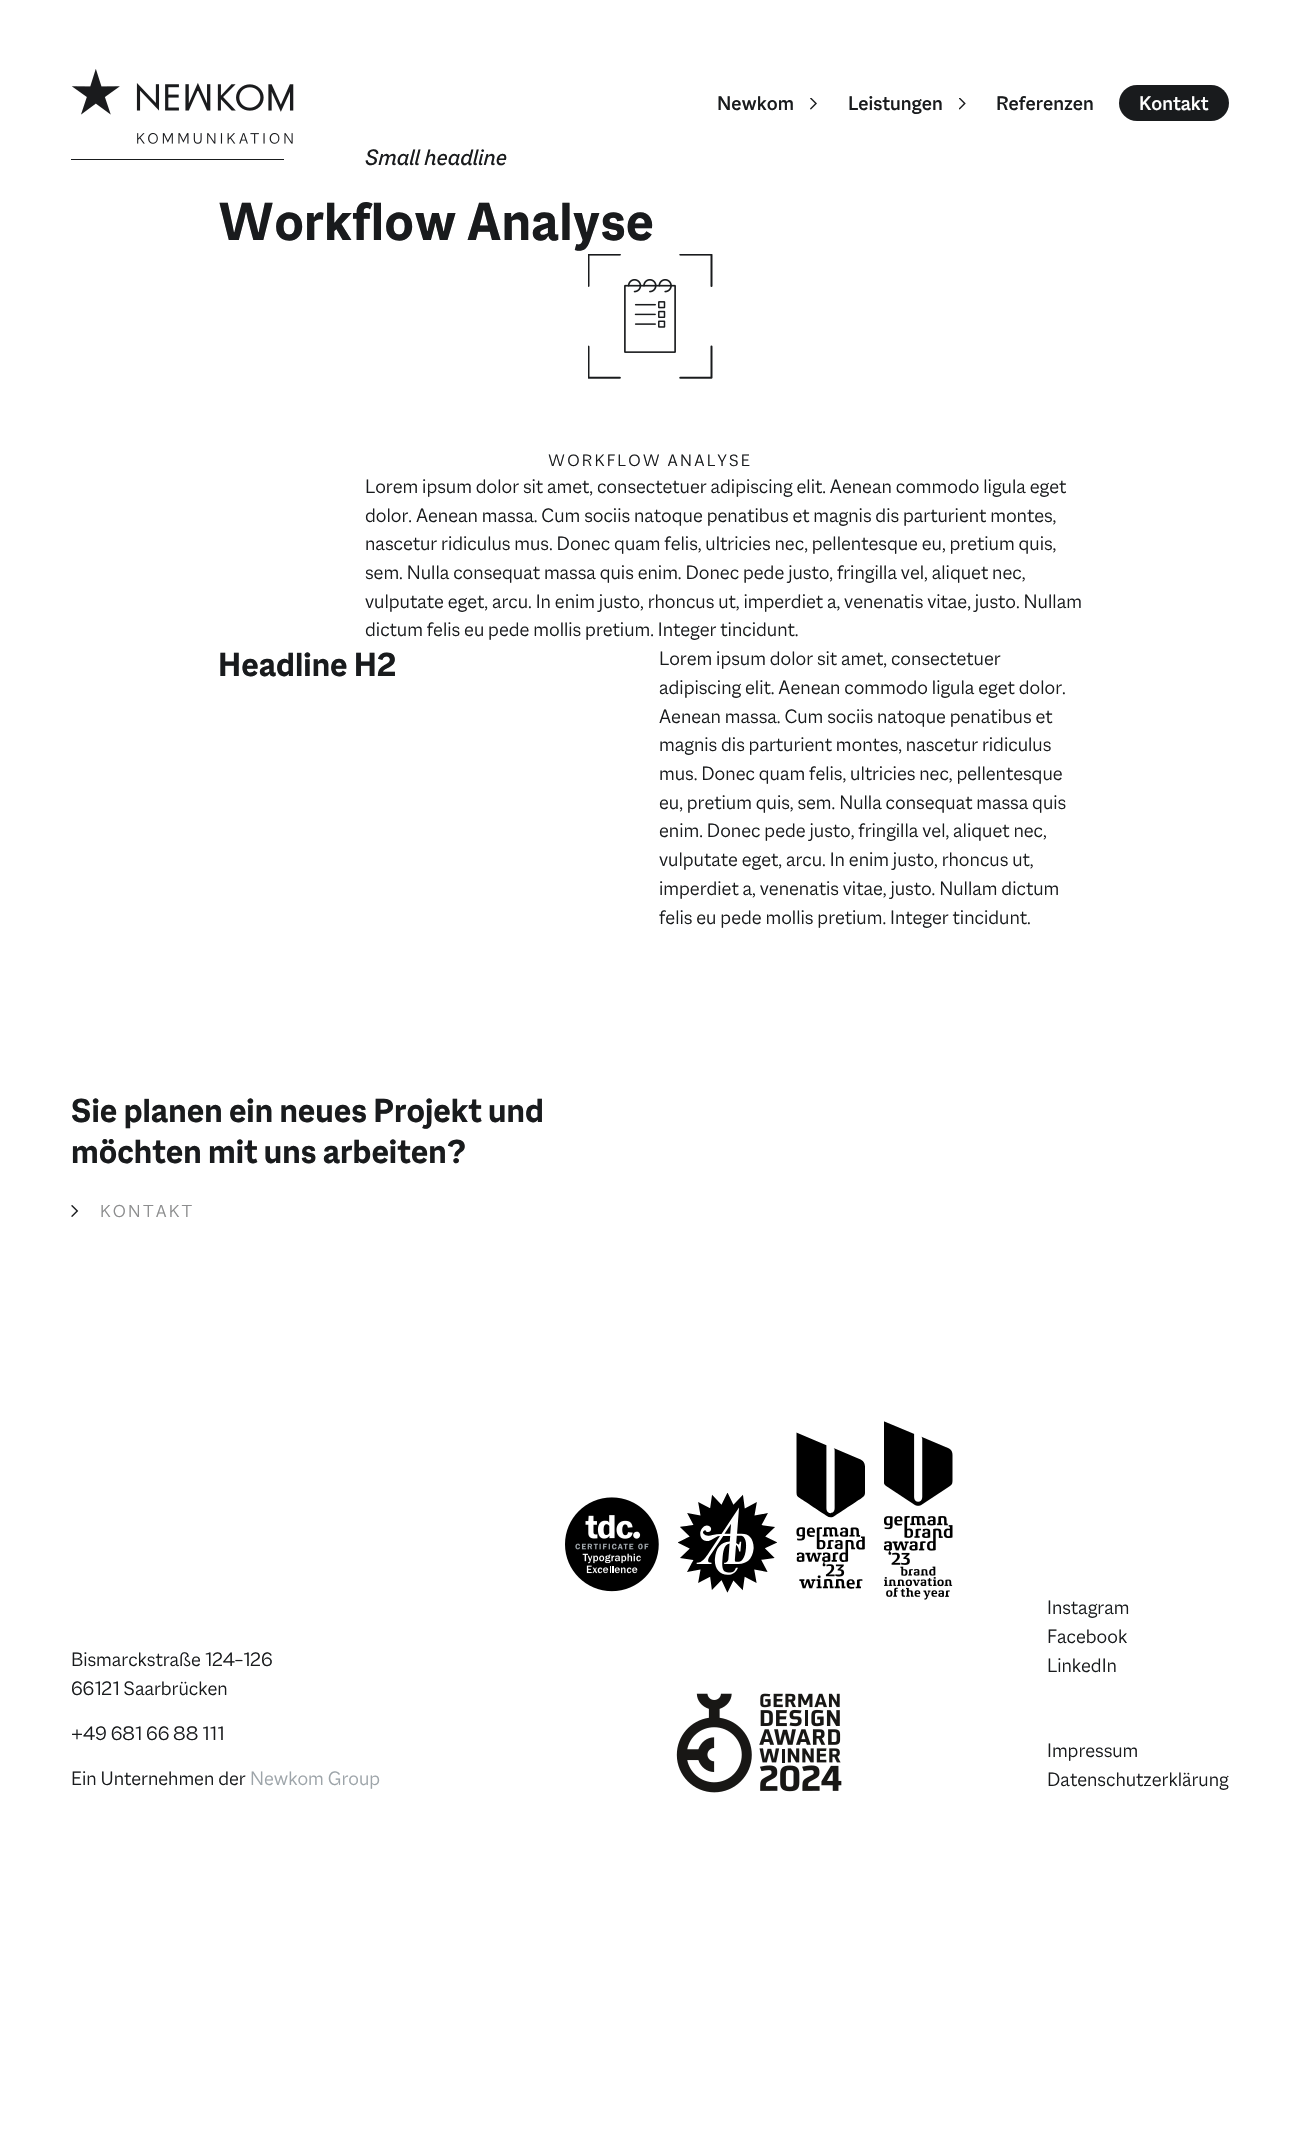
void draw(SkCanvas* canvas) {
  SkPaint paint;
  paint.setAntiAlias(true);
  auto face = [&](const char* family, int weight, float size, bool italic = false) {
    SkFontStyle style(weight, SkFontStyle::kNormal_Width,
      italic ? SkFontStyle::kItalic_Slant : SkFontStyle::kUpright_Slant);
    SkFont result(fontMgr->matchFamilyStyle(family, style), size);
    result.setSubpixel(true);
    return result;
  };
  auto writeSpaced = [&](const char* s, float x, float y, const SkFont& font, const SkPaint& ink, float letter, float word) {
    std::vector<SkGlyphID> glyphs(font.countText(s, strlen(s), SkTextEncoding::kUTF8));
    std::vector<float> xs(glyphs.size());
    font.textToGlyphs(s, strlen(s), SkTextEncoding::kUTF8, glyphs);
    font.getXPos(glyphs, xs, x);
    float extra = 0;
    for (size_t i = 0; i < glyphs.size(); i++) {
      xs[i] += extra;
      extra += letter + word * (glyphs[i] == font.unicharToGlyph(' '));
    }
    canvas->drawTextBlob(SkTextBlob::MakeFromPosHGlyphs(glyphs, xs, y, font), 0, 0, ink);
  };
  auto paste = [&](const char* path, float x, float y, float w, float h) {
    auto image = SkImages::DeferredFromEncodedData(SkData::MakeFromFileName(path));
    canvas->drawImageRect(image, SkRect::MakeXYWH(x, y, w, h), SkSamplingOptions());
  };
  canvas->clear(0xffffffff);
  paste("img/1.png", 71, 69, 223, 75);
  paste("img/2.png", 810, 98, 7, 12);
  paste("img/3.png", 959, 98, 7, 12);
  paint.setColor(0xff191b1d);
  canvas->drawRoundRect(SkRect::MakeXYWH(1119, 85, 110, 36), 18, 18, paint);
  canvas->drawRect(SkRect::MakeXYWH(71, 159, 213, 1), paint);
  paste("img/4.png", 588, 254, 33, 33);
  paste("img/5.png", 679, 254, 34, 33);
  paste("img/6.png", 624, 279, 52, 74);
  paste("img/7.png", 588, 345, 33, 34);
  paste("img/8.png", 679, 345, 34, 34);
  paste("img/9.png", 71, 1205, 8, 12);
  paste("img/10.png", 565, 1497, 94, 95);
  paste("img/11.png", 678, 1493, 99, 100);
  paste("img/12.png", 796, 1432, 69, 157);
  paste("img/13.png", 884, 1421, 69, 179);
  paste("img/14.png", 676, 1693, 166, 100);
  auto f0 = face("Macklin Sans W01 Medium", 500, 21.25f);
  {
    const struct { const char* s; float x, y; } items[] = {
      {"Newkom", 717, 110},
      {"Leistungen", 848, 110},
      {"Referenzen", 996, 110},
    };
    for (auto [s, x, y] : items) {
      canvas->drawString(s, x, y, f0, paint);
    }
  }
  paint.setColor(0xffffffff);
  canvas->drawString("Kontakt", 1139, 110, f0, paint);
  auto f1 = face("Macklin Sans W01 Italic", 400, 24);
  paint.setColor(0xff191b1d);
  canvas->drawString("Small headline", 365, 165, f1, paint);
  auto f2 = face("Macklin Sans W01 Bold", 700, 57.75f);
  canvas->drawString("Workflow Analyse", 218, 240, f2, paint);
  auto f3 = face("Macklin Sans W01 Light", 300, 17.75f);
  writeSpaced("WORKFLOW ANALYSE", 548, 466, f3, paint, 2.25f, 0);
  auto f4 = face("Macklin Sans W01 Light", 300, 20.95f);
  {
    const struct { const char* s; float x, y; } items[] = {
      {"Lorem ipsum dolor sit amet, consectetuer adipiscing elit. Aenean commodo ligula eget", 365, 493},
      {"dolor. Aenean massa. Cum sociis natoque penatibus et magnis dis parturient montes,", 365, 522},
      {"nascetur ridiculus mus. Donec quam felis, ultricies nec, pellentesque eu, pretium quis,", 365, 550},
      {"sem. Nulla consequat massa quis enim. Donec pede justo, fringilla vel, aliquet nec,", 365, 579},
      {"vulputate eget, arcu. In enim justo, rhoncus ut, imperdiet a, venenatis vitae, justo. Nullam", 365, 608},
      {"dictum felis eu pede mollis pretium. Integer tincidunt.", 365, 636},
    };
    for (auto [s, x, y] : items) {
      canvas->drawString(s, x, y, f4, paint);
    }
  }
  auto f5 = face("Macklin Sans W01 Bold", 700, 35.9f);
  canvas->drawString("Headline H2", 218, 676, f5, paint);
  {
    const struct { const char* s; float x, y; } items[] = {
      {"Lorem ipsum dolor sit amet, consectetuer", 659, 665},
      {"adipiscing elit. Aenean commodo ligula eget dolor.", 659, 694},
      {"Aenean massa. Cum sociis natoque penatibus et", 659, 723},
      {"magnis dis parturient montes, nascetur ridiculus", 659, 751},
      {"mus. Donec quam felis, ultricies nec, pellentesque", 659, 780},
      {"eu, pretium quis, sem. Nulla consequat massa quis", 659, 809},
      {"enim. Donec pede justo, fringilla vel, aliquet nec,", 659, 837},
      {"vulputate eget, arcu. In enim justo, rhoncus ut,", 659, 866},
      {"imperdiet a, venenatis vitae, justo. Nullam dictum", 659, 895},
      {"felis eu pede mollis pretium. Integer tincidunt.", 659, 924},
    };
    for (auto [s, x, y] : items) {
      canvas->drawString(s, x, y, f4, paint);
    }
  }
  canvas->drawString("Sie planen ein neues Projekt und", 71, 1122, f5, paint);
  canvas->drawString("möchten mit uns arbeiten?", 71, 1163, f5, paint);
  auto f6 = face("Macklin Sans W01 Light", 300, 18.75f);
  paint.setColor(0xff8c8d8e);
  writeSpaced("KONTAKT", 100, 1217, f6, paint, 2.25f, 0);
  paint.setColor(0xff191b1d);
  {
    const struct { const char* s; float x, y; } items[] = {
      {"Instagram", 1047, 1614},
      {"Facebook", 1047, 1643},
      {"LinkedIn", 1047, 1672},
      {"Bismarckstraße 124–126", 71, 1666},
      {"66121 Saarbrücken", 71, 1695},
      {"+49 681 66 88 111", 71, 1740},
      {"Ein Unternehmen der", 71, 1785},
    };
    for (auto [s, x, y] : items) {
      canvas->drawString(s, x, y, f4, paint);
    }
  }
  paint.setColor(0xff9da4a9);
  canvas->drawString("Newkom Group", 250, 1785, f4, paint);
  paint.setColor(0xff191b1d);
  canvas->drawString("Impressum", 1047, 1757, f4, paint);
  canvas->drawString("Datenschutzerklärung", 1047, 1786, f4, paint);
}
